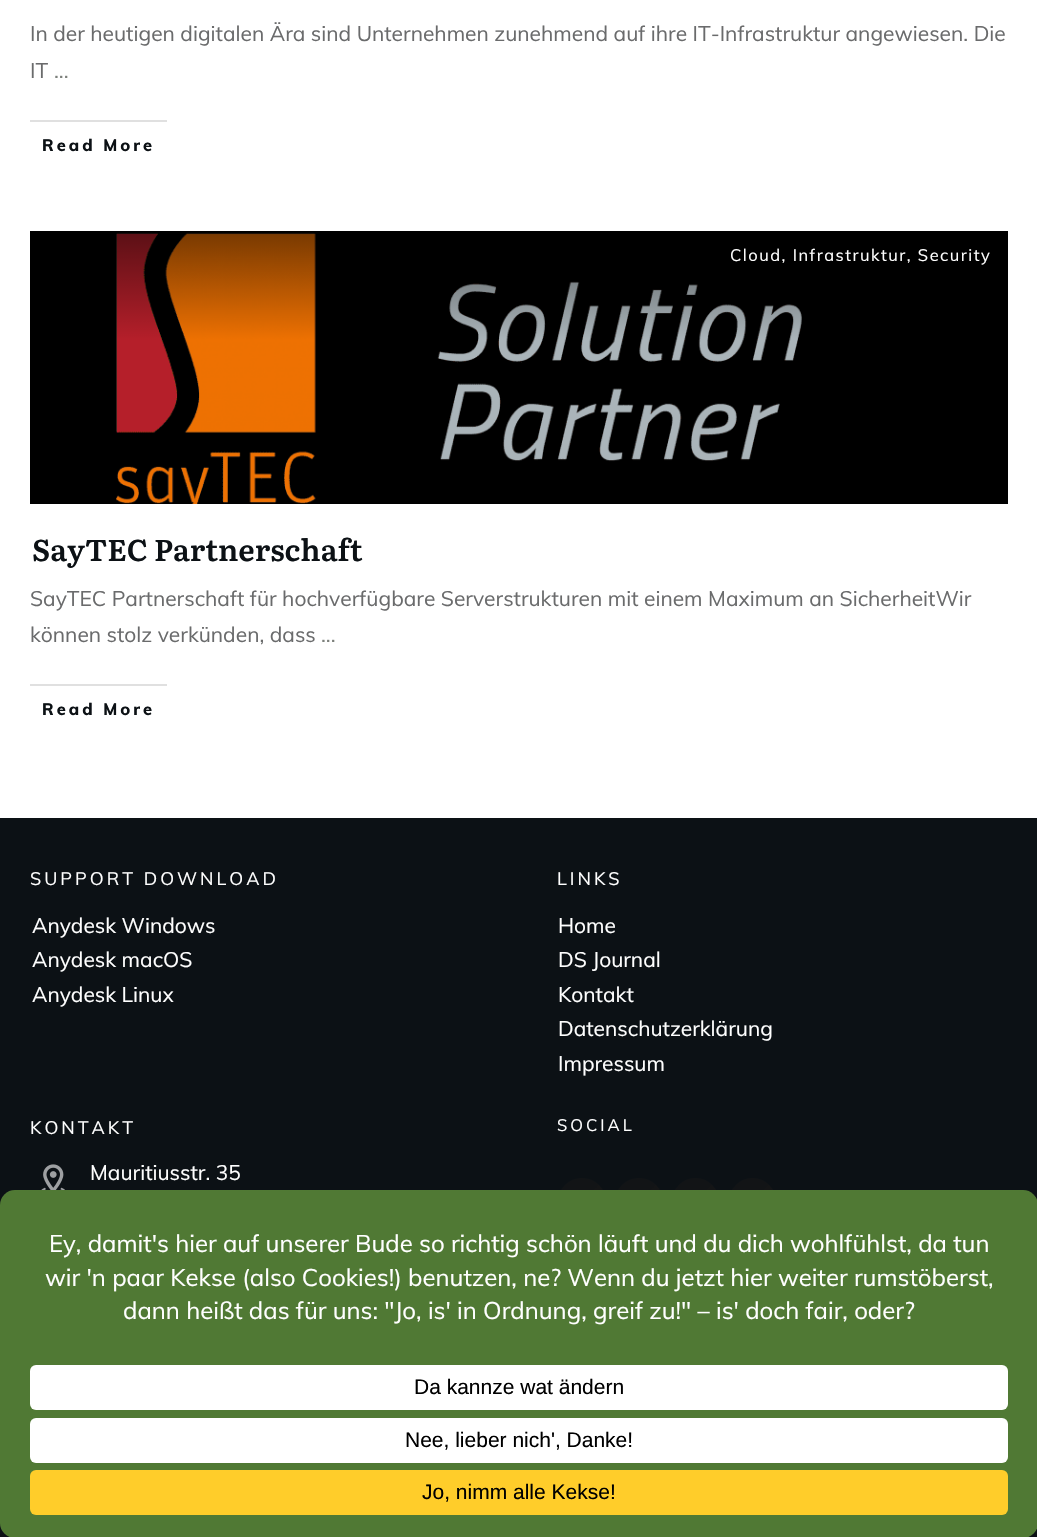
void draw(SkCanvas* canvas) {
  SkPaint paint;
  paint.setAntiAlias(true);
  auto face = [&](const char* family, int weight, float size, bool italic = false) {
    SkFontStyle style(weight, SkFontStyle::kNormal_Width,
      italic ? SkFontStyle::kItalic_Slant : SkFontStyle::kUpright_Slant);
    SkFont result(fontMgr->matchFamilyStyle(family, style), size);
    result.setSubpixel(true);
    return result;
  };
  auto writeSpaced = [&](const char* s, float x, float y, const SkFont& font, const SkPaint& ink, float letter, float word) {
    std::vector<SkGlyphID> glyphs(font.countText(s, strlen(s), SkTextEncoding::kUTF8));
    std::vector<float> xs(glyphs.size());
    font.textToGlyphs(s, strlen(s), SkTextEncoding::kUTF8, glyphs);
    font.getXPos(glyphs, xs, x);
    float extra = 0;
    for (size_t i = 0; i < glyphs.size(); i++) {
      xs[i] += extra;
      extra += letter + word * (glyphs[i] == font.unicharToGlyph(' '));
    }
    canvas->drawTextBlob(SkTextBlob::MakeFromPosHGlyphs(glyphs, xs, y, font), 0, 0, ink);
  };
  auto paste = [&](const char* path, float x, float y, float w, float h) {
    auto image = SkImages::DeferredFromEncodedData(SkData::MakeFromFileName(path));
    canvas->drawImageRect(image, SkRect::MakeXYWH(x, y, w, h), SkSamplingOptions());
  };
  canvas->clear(0xffffffff);
  paint.setColor(0xffe0e0e0);
  canvas->drawRect(SkRect::MakeXYWH(30, 120, 137, 2), paint);
  paste("img/1.png", 30, 231, 978, 273);
  canvas->drawRect(SkRect::MakeXYWH(30, 684, 137, 2), paint);
  paint.setColor(0xff0c1115);
  canvas->drawRect(SkRect::MakeXYWH(0, 818, 1037, 719), paint);
  paste("img/2.png", 41, 1164, 24, 26);
  {
    const SkColor colors[] = {0xff121416, 0xff141516};
    const float stops[] = {0.5f, 0.5f};
    const SkPoint ends[] = {{558, 1178}, {606, 1226}};
    paint.setShader(SkGradientShader::MakeLinear(ends, colors, stops, 2, SkTileMode::kClamp));
    paint.setAlpha(255);
  }
  canvas->drawCircle(582, 1202, 24, paint);
  {
    const SkColor colors[] = {0xff121416, 0xff141516};
    const float stops[] = {0.5f, 0.5f};
    const SkPoint ends[] = {{615, 1178}, {663, 1226}};
    paint.setShader(SkGradientShader::MakeLinear(ends, colors, stops, 2, SkTileMode::kClamp));
    paint.setAlpha(255);
  }
  canvas->drawCircle(639, 1202, 24, paint);
  {
    const SkColor colors[] = {0xff121416, 0xff141516};
    const float stops[] = {0.5f, 0.5f};
    const SkPoint ends[] = {{671, 1178}, {719, 1225}};
    paint.setShader(SkGradientShader::MakeLinear(ends, colors, stops, 2, SkTileMode::kClamp));
    paint.setAlpha(255);
  }
  canvas->drawRoundRect(SkRect::MakeXYWH(672, 1178, 47, 48), 23.5f, 23.5f, paint);
  {
    const SkColor colors[] = {0xff121416, 0xff141516};
    const float stops[] = {0.5f, 0.5f};
    const SkPoint ends[] = {{728, 1178}, {776, 1225}};
    paint.setShader(SkGradientShader::MakeLinear(ends, colors, stops, 2, SkTileMode::kClamp));
    paint.setAlpha(255);
  }
  canvas->drawRoundRect(SkRect::MakeXYWH(729, 1178, 47, 48), 23.5f, 23.5f, paint);
  paint.setShader(nullptr);
  paint.setColor(0xff507934);
  canvas->drawRoundRect(SkRect::MakeXYWH(0, 1190, 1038, 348), 15, 15, paint);
  paint.setColor(0xffffffff);
  canvas->drawRoundRect(SkRect::MakeXYWH(30, 1365, 978, 45), 6, 6, paint);
  canvas->drawRoundRect(SkRect::MakeXYWH(30, 1418, 978, 45), 6, 6, paint);
  paint.setColor(0xffffcd2a);
  canvas->drawRoundRect(SkRect::MakeXYWH(30, 1470, 978, 45), 6, 6, paint);
  auto f0 = face("Muli", 400, 21);
  paint.setColor(0xff6a6b6c);
  canvas->drawString("In der heutigen digitalen Ära sind Unternehmen zunehmend auf ihre IT-Infrastruktur angewiesen. Die", 30, 41, f0, paint);
  canvas->drawString("IT", 30, 78, f0, paint);
  paint.setColor(0xff7c807b);
  canvas->drawString("...", 54, 78, f0, paint);
  auto f1 = face("Muli", 800, 16.5f);
  paint.setColor(0xff0c1115);
  writeSpaced("Read More", 42, 151, f1, paint, 3, 0);
  auto f2 = face("Muli", 400, 16.5f);
  paint.setColor(0xffffffff);
  writeSpaced("Cloud, Infrastruktur, Security", 730, 261, f2, paint, 1.5f, 0);
  auto f3 = face("Literata", 600, 30);
  paint.setColor(0xff0c1115);
  canvas->drawString("SayTEC Partnerschaft", 32, 561, f3, paint);
  paint.setColor(0xff6a6b6c);
  canvas->drawString("SayTEC Partnerschaft für hochverfügbare Serverstrukturen mit einem Maximum an SicherheitWir", 30, 606, f0, paint);
  canvas->drawString("können stolz verkünden, dass", 30, 642, f0, paint);
  paint.setColor(0xff7c807b);
  canvas->drawString("...", 321, 642, f0, paint);
  paint.setColor(0xff0c1115);
  writeSpaced("Read More", 42, 715, f1, paint, 3, 0);
  auto f4 = face("Muli", 400, 18);
  paint.setColor(0xffffffff);
  writeSpaced("SUPPORT DOWNLOAD", 30, 885, f4, paint, 3, 0);
  {
    const struct { const char* s; float x, y; } items[] = {
      {"Anydesk Windows", 32, 933},
      {"Anydesk macOS", 32, 967},
      {"Anydesk Linux", 32, 1002},
    };
    for (auto [s, x, y] : items) {
      canvas->drawString(s, x, y, f0, paint);
    }
  }
  writeSpaced("LINKS", 557, 885, f4, paint, 3, 0);
  {
    const struct { const char* s; float x, y; } items[] = {
      {"Home", 558, 933},
      {"DS Journal", 558, 967},
      {"Kontakt", 558, 1002},
      {"Datenschutzerklärung", 558, 1036},
      {"Impressum", 558, 1071},
    };
    for (auto [s, x, y] : items) {
      canvas->drawString(s, x, y, f0, paint);
    }
  }
  writeSpaced("KONTAKT", 30, 1134, f4, paint, 3, 0);
  canvas->drawString("Mauritiusstr. 35", 90, 1180, f0, paint);
  writeSpaced("SOCIAL", 557, 1131, f2, paint, 3, 0);
  auto f5 = face("Muli", 400, 24);
  {
    const struct { const char* s; float x, y; } items[] = {
      {"Ey, damit's hier auf unserer Bude so richtig schön läuft und du dich wohlfühlst, da tun", 49, 1252},
      {"wir 'n paar Kekse (also Cookies!) benutzen, ne? Wenn du jetzt hier weiter rumstöberst,", 45, 1286},
      {"dann heißt das für uns: \"Jo, is' in Ordnung, greif zu!\" – is' doch fair, oder?", 123, 1319},
    };
    for (auto [s, x, y] : items) {
      canvas->drawString(s, x, y, f5, paint);
    }
  }
  auto f6 = face("Liberation Sans", 400, 21);
  paint.setColor(0xff000000);
  {
    const struct { const char* s; float x, y; } items[] = {
      {"Da kannze wat ändern", 414, 1394},
      {"Nee, lieber nich', Danke!", 405, 1447},
      {"Jo, nimm alle Kekse!", 422, 1499},
    };
    for (auto [s, x, y] : items) {
      canvas->drawString(s, x, y, f6, paint);
    }
  }
}
